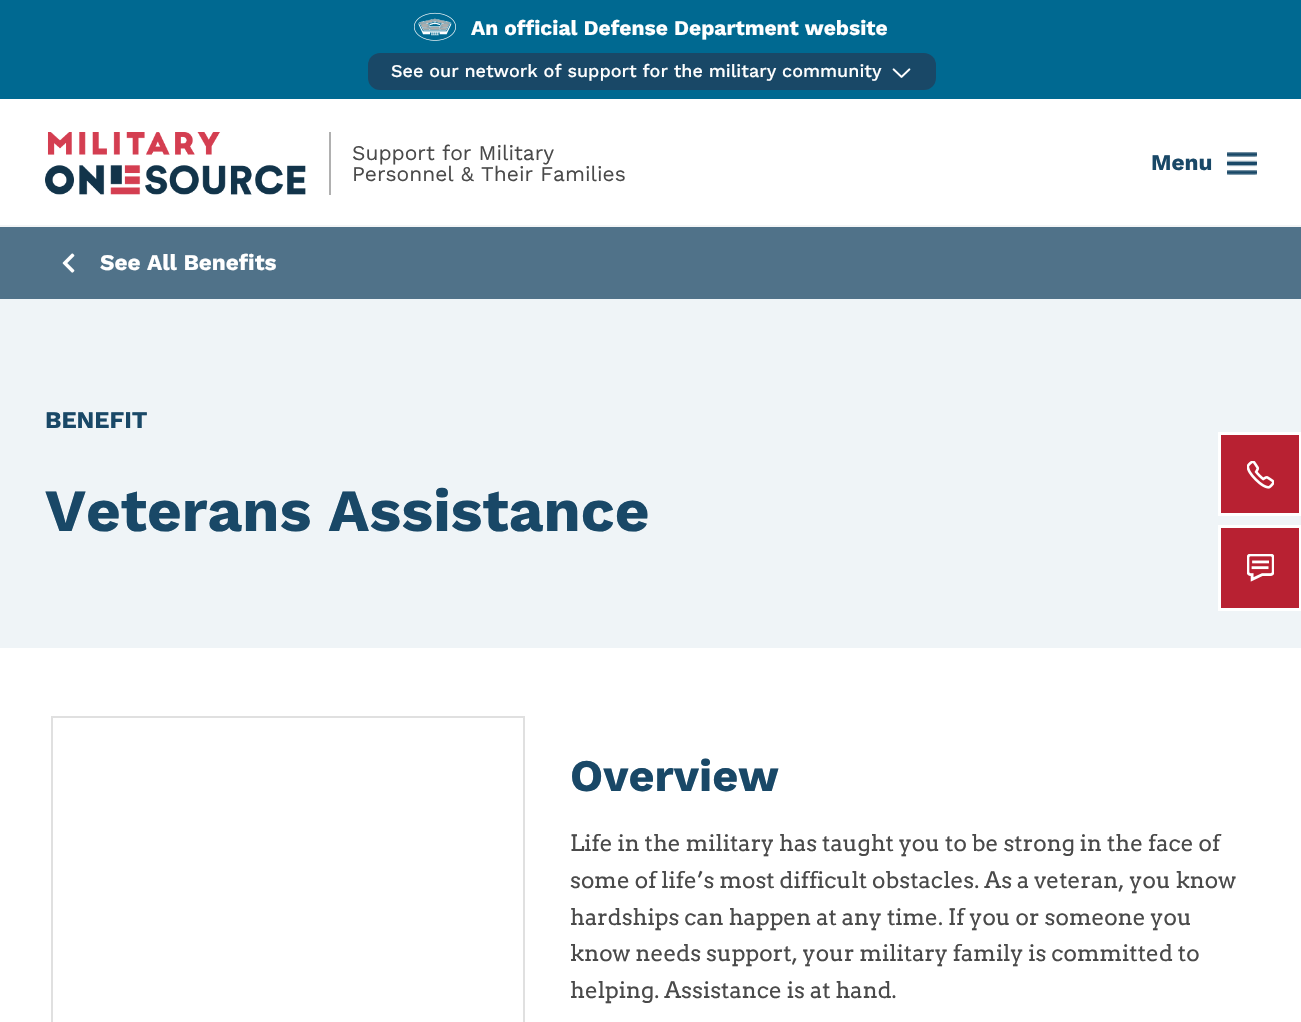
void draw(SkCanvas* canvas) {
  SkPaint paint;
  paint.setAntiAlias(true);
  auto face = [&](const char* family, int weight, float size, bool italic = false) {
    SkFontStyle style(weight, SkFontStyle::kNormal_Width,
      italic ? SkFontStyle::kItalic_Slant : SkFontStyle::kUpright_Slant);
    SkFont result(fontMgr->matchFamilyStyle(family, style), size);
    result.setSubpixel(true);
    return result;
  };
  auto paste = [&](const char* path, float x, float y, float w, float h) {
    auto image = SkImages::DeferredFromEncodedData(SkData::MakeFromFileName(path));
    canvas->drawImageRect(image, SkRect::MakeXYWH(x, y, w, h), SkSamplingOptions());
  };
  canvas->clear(0xffffffff);
  paint.setColor(0xff006991);
  canvas->drawRect(SkRect::MakeXYWH(0, 0, 1301, 99), paint);
  paste("img/1.png", 414, 12, 42, 29);
  paint.setColor(0xff194867);
  canvas->drawRoundRect(SkRect::MakeXYWH(368, 53, 568, 37), 12, 12, paint);
  paste("img/2.png", 892, 68, 19, 10);
  paint.setColor(0xfff3f5f6);
  canvas->drawRect(SkRect::MakeXYWH(0, 225, 1301, 2), paint);
  paste("img/3.png", 45, 132, 261, 63);
  paint.setColor(0xffb0b0b0);
  canvas->drawRect(SkRect::MakeXYWH(329, 132, 2, 63), paint);
  paste("img/4.png", 1227, 152, 30, 23);
  paint.setColor(0xff507289);
  canvas->drawRect(SkRect::MakeXYWH(0, 227, 1301, 72), paint);
  paste("img/5.png", 62, 253, 13, 20);
  paint.setColor(0xffeff4f7);
  canvas->drawRect(SkRect::MakeXYWH(0, 299, 1301, 349), paint);
  paint.setStroke(true);
  paint.setStrokeWidth(2);
  paint.setColor(0xffe0e0e0);
  canvas->drawRect(SkRect::MakeXYWH(52, 717, 472, 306), paint);
  paint.setStroke(false);
  paint.setColor(0xffb82132);
  canvas->drawRect(SkRect::MakeXYWH(1219.5f, 433.5f, 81, 81), paint);
  paint.setStroke(true);
  paint.setStrokeWidth(3);
  paint.setColor(0xffffffff);
  canvas->drawRect(SkRect::MakeXYWH(1219.5f, 433.5f, 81, 81), paint);
  paste("img/6.png", 1247, 461, 27, 28);
  paint.setStroke(false);
  paint.setColor(0xffb82132);
  canvas->drawRect(SkRect::MakeXYWH(1219.5f, 526.5f, 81, 83), paint);
  paint.setStroke(true);
  paint.setColor(0xffffffff);
  canvas->drawRect(SkRect::MakeXYWH(1219.5f, 526.5f, 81, 83), paint);
  paste("img/7.png", 1247, 554, 27, 28);
  auto f0 = face("Work Sans", 700, 21);
  paint.setStroke(false);
  canvas->drawString("An official Defense Department website", 471, 35, f0, paint);
  auto f1 = face("Work Sans", 500, 18);
  canvas->drawString("See our network of support for the military community", 391, 77, f1, paint);
  auto f2 = face("Work Sans", 400, 21);
  paint.setColor(0xff4a4a4a);
  canvas->drawString("Support for Military", 352, 160, f2, paint);
  canvas->drawString("Personnel & Their Families", 352, 181, f2, paint);
  auto f3 = face("Work Sans", 700, 22.5f);
  paint.setColor(0xff194867);
  canvas->drawString("Menu", 1151, 170, f3, paint);
  paint.setColor(0xffffffff);
  canvas->drawString("See All Benefits", 100, 270, f3, paint);
  auto f4 = face("Work Sans", 700, 24);
  paint.setColor(0xff194867);
  canvas->drawString("BENEFIT", 45, 428, f4, paint);
  auto f5 = face("Work Sans", 700, 60);
  canvas->drawString("Veterans Assistance", 45, 531, f5, paint);
  auto f6 = face("Work Sans", 700, 45);
  canvas->drawString("Overview", 570, 791, f6, paint);
  auto f7 = face("Arvo", 400, 22.5f);
  paint.setColor(0xff4a4a4a);
  {
    const struct { const char* s; float x, y; } items[] = {
      {"Life in the military has taught you to be strong in the face of", 570, 851},
      {"some of life’s most difficult obstacles. As a veteran, you know", 570, 888},
      {"hardships can happen at any time. If you or someone you", 570, 925},
      {"know needs support, your military family is committed to", 570, 961},
      {"helping. Assistance is at hand.", 570, 998},
    };
    for (auto [s, x, y] : items) {
      canvas->drawString(s, x, y, f7, paint);
    }
  }
}
